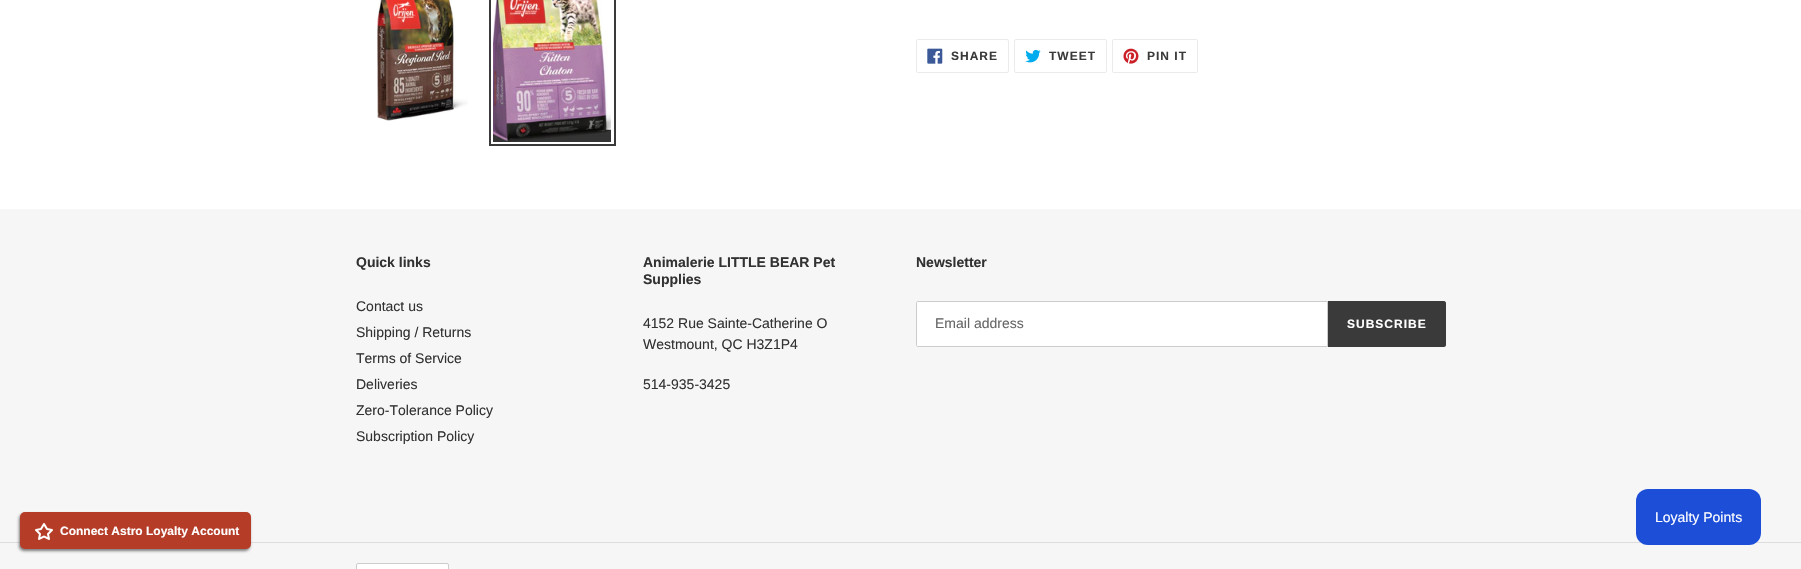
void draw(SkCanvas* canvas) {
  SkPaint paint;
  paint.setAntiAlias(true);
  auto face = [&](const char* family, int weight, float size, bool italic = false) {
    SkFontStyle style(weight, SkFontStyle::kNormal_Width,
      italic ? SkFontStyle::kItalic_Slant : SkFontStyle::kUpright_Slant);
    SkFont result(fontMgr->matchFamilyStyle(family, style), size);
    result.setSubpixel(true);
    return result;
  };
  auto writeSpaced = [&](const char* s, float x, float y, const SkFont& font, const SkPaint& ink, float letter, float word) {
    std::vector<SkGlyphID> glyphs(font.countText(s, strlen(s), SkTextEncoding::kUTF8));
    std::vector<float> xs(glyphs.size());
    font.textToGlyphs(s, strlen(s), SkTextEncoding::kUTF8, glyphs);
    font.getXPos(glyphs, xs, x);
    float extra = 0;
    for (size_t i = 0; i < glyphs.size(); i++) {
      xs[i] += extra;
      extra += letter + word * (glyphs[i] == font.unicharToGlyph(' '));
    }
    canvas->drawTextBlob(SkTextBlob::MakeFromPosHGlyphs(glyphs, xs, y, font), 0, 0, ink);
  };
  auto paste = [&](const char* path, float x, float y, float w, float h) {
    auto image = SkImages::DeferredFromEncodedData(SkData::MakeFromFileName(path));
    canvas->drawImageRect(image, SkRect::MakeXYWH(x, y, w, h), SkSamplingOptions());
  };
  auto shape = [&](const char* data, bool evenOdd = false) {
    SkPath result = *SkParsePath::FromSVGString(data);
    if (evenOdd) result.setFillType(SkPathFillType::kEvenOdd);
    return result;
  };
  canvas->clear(0xffffffff);
  paste("img/1.png", 377, 0, 91, 121);
  paint.setStroke(true);
  paint.setStrokeWidth(2);
  paint.setColor(0xff3a3a3a);
  canvas->drawRect(SkRect::MakeXYWH(490, -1, 125, 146), paint);
  paste("img/2.png", 493, 0, 118, 142);
  paint.setStrokeWidth(1);
  paint.setColor(0xffebebeb);
  canvas->drawRoundRect(SkRect::MakeXYWH(916.5f, 39.5f, 92, 33), 1.5f, 1.5f, paint);
  paste("img/3.png", 927, 48, 16, 16);
  canvas->drawRoundRect(SkRect::MakeXYWH(1014.5f, 39.5f, 92, 33), 1.5f, 1.5f, paint);
  paste("img/4.png", 1025, 49, 16, 14);
  canvas->drawRoundRect(SkRect::MakeXYWH(1112.5f, 39.5f, 85, 33), 1.5f, 1.5f, paint);
  paste("img/5.png", 1123, 48, 16, 16);
  paint.setStroke(false);
  paint.setColor(0xfff6f6f6);
  canvas->drawRect(SkRect::MakeXYWH(0, 209, 1801, 360), paint);
  paint.setColor(0xffffffff);
  canvas->drawPath(shape("M918 301.5H1327.5V346.5H918C917 346.5 916.5 346 916.5 345V303C916.5 302 917 301.5 918 301.5Z"), paint);
  paint.setStroke(true);
  paint.setColor(0xffcccccc);
  canvas->drawPath(shape("M918 301.5H1327.5V346.5H918C917 346.5 916.5 346 916.5 345V303C916.5 302 917 301.5 918 301.5Z"), paint);
  paint.setStroke(false);
  paint.setColor(0xff3a3a3a);
  canvas->drawPath(shape("M1328 301H1444C1445 301 1446 302 1446 303V345C1446 346 1445 347 1444 347H1328Z"), paint);
  paint.setColor(0xffdddddd);
  canvas->drawRect(SkRect::MakeXYWH(0, 542, 1801, 1), paint);
  paint.setColor(0xffffffff);
  canvas->drawRoundRect(SkRect::MakeXYWH(356.5f, 563.5f, 92, 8), 1.5f, 1.5f, paint);
  paint.setStroke(true);
  paint.setColor(0xffcccccc);
  canvas->drawRoundRect(SkRect::MakeXYWH(356.5f, 563.5f, 92, 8), 1.5f, 1.5f, paint);
  paint.setStroke(false);
  paint.setColor(0xff1d4ed8);
  canvas->drawRoundRect(SkRect::MakeXYWH(1636, 489, 125, 56), 12, 12, paint);
  paint.setColor(0x80000000);
  paint.setMaskFilter(SkMaskFilter::MakeBlur(kNormal_SkBlurStyle, 1.5f));
  canvas->drawRoundRect(SkRect::MakeXYWH(19, 514, 231, 37), 5, 5, paint);
  paint.setMaskFilter(nullptr);
  paint.setColor(0xffb53c27);
  canvas->drawRoundRect(SkRect::MakeXYWH(20, 512, 231, 37), 5, 5, paint);
  paste("img/6.png", 35, 523, 18, 17);
  auto f0 = face("Liberation Sans", 700, 12);
  paint.setColor(0xff3a3a3a);
  {
    const struct { const char* s; float x, y; } items[] = {
      {"SHARE", 951, 60},
      {"TWEET", 1049, 60},
      {"PIN IT", 1147, 60},
    };
    for (auto [s, x, y] : items) {
      writeSpaced(s, x, y, f0, paint, 1, 0);
    }
  }
  auto f1 = face("Liberation Sans", 700, 14);
  paint.setColor(0xff333232);
  canvas->drawString("Quick links", 356, 267, f1, paint);
  auto f2 = face("Liberation Sans", 400, 14);
  {
    const struct { const char* s; float x, y; } items[] = {
      {"Contact us", 356, 311},
      {"Shipping / Returns", 356, 337},
      {"Terms of Service", 356, 363},
      {"Deliveries", 356, 389},
      {"Zero-Tolerance Policy", 356, 415},
      {"Subscription Policy", 356, 441},
    };
    for (auto [s, x, y] : items) {
      canvas->drawString(s, x, y, f2, paint);
    }
  }
  canvas->drawString("Animalerie LITTLE BEAR Pet", 643, 267, f1, paint);
  canvas->drawString("Supplies", 643, 284, f1, paint);
  {
    const struct { const char* s; float x, y; } items[] = {
      {"4152 Rue Sainte-Catherine O", 643, 328},
      {"Westmount, QC H3Z1P4", 643, 349},
      {"514-935-3425", 643, 389},
    };
    for (auto [s, x, y] : items) {
      canvas->drawString(s, x, y, f2, paint);
    }
  }
  canvas->drawString("Newsletter", 916, 267, f1, paint);
  paint.setColor(0xff666666);
  canvas->drawString("Email address", 935, 328, f2, paint);
  paint.setColor(0xffffffff);
  writeSpaced("SUBSCRIBE", 1347, 328, f0, paint, 1, 0);
  canvas->drawString("Loyalty Points", 1655, 522, f2, paint);
  canvas->drawString("Connect Astro Loyalty Account", 60, 535, f0, paint);
}
